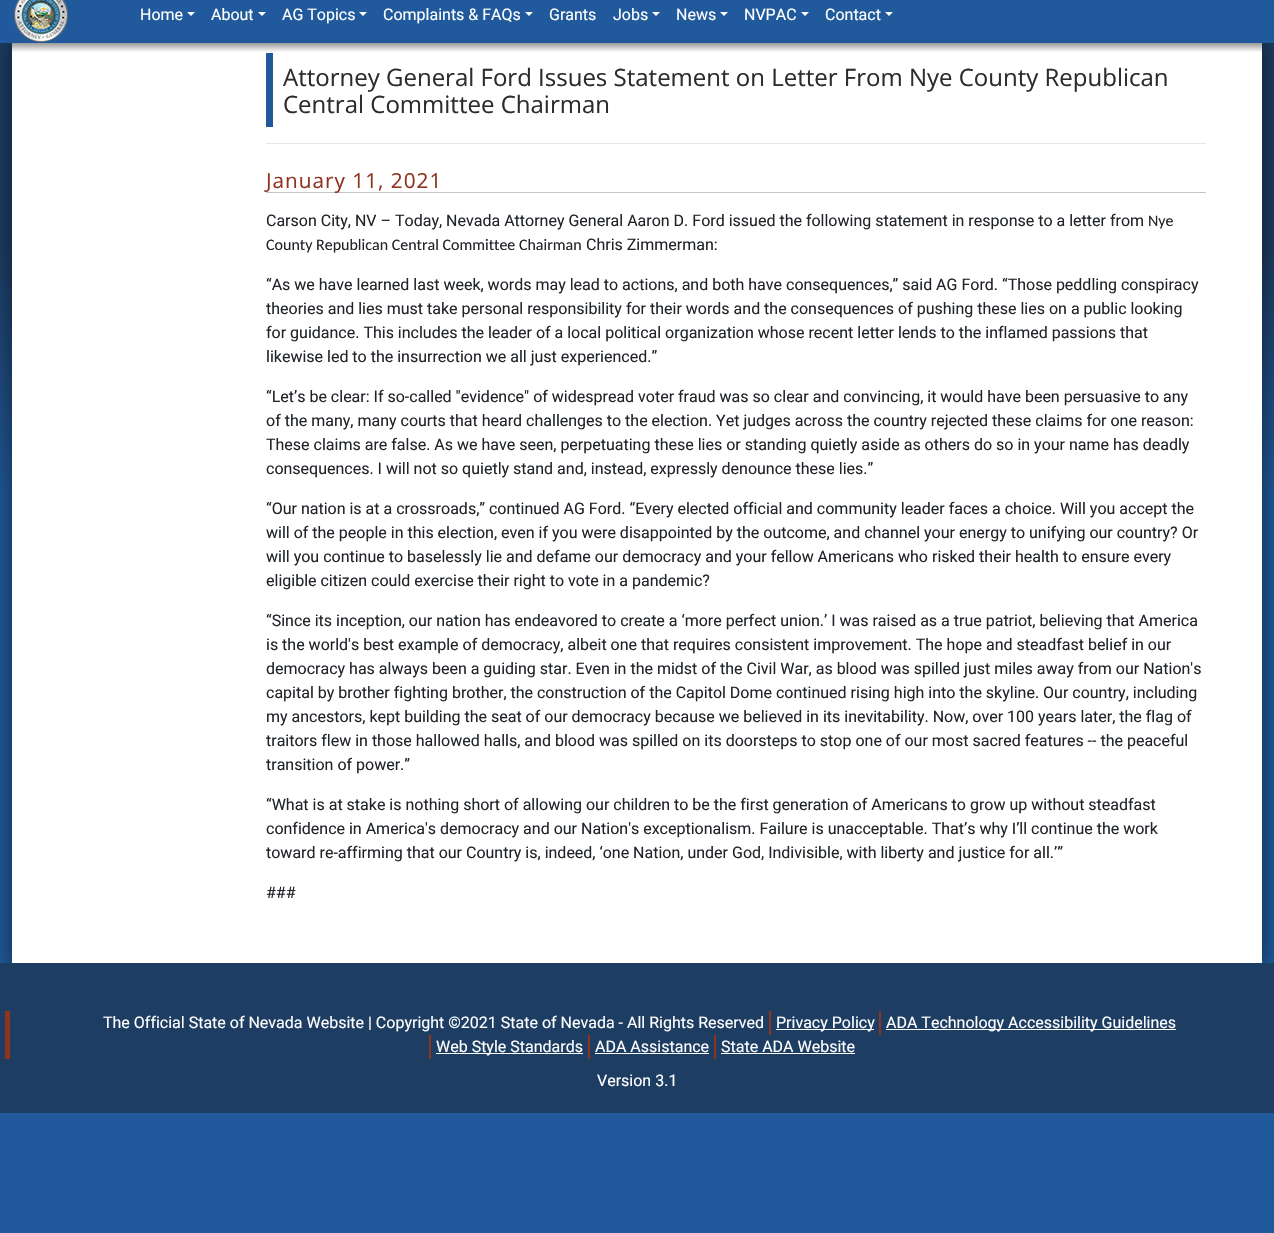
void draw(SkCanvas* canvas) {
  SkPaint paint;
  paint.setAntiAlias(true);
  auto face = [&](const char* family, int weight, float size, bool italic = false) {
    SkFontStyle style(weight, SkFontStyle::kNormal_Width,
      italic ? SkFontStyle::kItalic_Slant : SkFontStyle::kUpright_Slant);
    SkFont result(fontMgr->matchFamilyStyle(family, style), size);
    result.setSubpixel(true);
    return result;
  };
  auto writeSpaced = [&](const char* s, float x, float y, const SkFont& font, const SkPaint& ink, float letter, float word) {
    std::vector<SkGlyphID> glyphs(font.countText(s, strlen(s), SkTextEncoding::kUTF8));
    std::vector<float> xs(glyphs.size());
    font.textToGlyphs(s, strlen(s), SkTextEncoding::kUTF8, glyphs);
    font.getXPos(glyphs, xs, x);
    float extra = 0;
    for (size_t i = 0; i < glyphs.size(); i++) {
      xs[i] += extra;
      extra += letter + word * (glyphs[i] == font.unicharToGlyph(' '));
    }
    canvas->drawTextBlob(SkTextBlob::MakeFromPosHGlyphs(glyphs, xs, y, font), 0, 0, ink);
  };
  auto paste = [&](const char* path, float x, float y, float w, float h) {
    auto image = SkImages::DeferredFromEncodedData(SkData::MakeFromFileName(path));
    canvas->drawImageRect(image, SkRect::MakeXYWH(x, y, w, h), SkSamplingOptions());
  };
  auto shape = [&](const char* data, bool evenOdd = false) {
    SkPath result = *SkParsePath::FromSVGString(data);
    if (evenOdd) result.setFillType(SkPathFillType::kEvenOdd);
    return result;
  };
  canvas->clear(0xffffffff);
  {
    const SkColor colors[] = {0xff1d3d63, 0xff1d3d63, 0xff205a9c};
    const float stops[] = {0, 0.2f, 0.4f};
    const SkPoint ends[] = {{637, 0}, {637, 1233}};
    paint.setShader(SkGradientShader::MakeLinear(ends, colors, stops, 3, SkTileMode::kClamp));
    paint.setAlpha(255);
  }
  canvas->drawRect(SkRect::MakeXYWH(0, 43, 1274, 1190), paint);
  paint.setShader(nullptr);
  paint.setColor(0x66000000);
  paint.setMaskFilter(SkMaskFilter::MakeBlur(kNormal_SkBlurStyle, 10));
  canvas->drawRect(SkRect::MakeXYWH(7, 38, 1260, 930), paint);
  paint.setMaskFilter(nullptr);
  paint.setColor(0xff205a9c);
  canvas->drawRect(SkRect::MakeXYWH(0, 0, 1274, 43), paint);
  paste("img/1.png", 14, 0, 54, 42);
  paint.setColor(0xffffffff);
  canvas->drawPath(shape("M187 12H195L191 16Z"), paint);
  canvas->drawPath(shape("M258 12H266L262 16Z"), paint);
  canvas->drawPath(shape("M359 12H367L363 16Z"), paint);
  canvas->drawPath(shape("M525 12H533L529 16Z"), paint);
  canvas->drawPath(shape("M652 12H660L656 16Z"), paint);
  canvas->drawPath(shape("M720 12H728L724 16Z"), paint);
  canvas->drawPath(shape("M801 12H809L805 16Z"), paint);
  canvas->drawPath(shape("M885 12H893L889 16Z"), paint);
  {
    const SkColor colors[] = {0xff999999, 0xffffffff, 0xffffffff};
    const float stops[] = {0, 0.01f, 1};
    const SkPoint ends[] = {{637, 43}, {637, 963}};
    paint.setShader(SkGradientShader::MakeLinear(ends, colors, stops, 3, SkTileMode::kClamp));
    paint.setAlpha(255);
  }
  canvas->drawRect(SkRect::MakeXYWH(12, 43, 1250, 920), paint);
  paint.setShader(nullptr);
  {
    const struct { float x, y, w, h; SkColor color; } items[] = {
      {266, 53, 7, 74, 0xff205a9c},
      {266, 143, 940, 1, 0xffe6e6e6},
      {266, 192, 940, 1, 0xffc3c3c3},
      {0, 963, 1274, 150, 0xff1d3d63},
      {5, 1011, 5, 48, 0xff8f331f},
      {769, 1011, 2, 24, 0xff8f331f},
      {776, 1029, 98, 1, 0xffffffff},
      {879, 1011, 2, 24, 0xff8f331f},
      {886, 1029, 290, 1, 0xffffffff},
      {429, 1035, 2, 24, 0xff8f331f},
      {436, 1053, 147, 1, 0xffffffff},
      {588, 1035, 2, 24, 0xff8f331f},
      {595, 1053, 114, 1, 0xffffffff},
      {714, 1035, 2, 24, 0xff8f331f},
      {721, 1053, 134, 1, 0xffffffff},
    };
    for (auto [x, y, w, h, color] : items) {
      paint.setColor(color);
      canvas->drawRect(SkRect::MakeXYWH(x, y, w, h), paint);
    }
  }
  auto f0 = face("Roboto", 400, 16);
  {
    const struct { const char* s; float x, y; } items[] = {
      {"Home", 140, 20},
      {"About", 211, 20},
      {"AG Topics", 282, 20},
      {"Complaints & FAQs", 383, 20},
      {"Grants", 549, 20},
      {"Jobs", 613, 20},
      {"News", 676, 20},
      {"NVPAC", 744, 20},
      {"Contact", 825, 20},
    };
    for (auto [s, x, y] : items) {
      canvas->drawString(s, x, y, f0, paint);
    }
  }
  auto f1 = face("Open Sans", 400, 24);
  paint.setColor(0xff2c2c2c);
  canvas->drawString("Attorney General Ford Issues Statement on Letter From Nye County Republican", 283, 86, f1, paint);
  canvas->drawString("Central Committee Chairman", 283, 113, f1, paint);
  auto f2 = face("Open Sans", 400, 20.75f);
  paint.setColor(0xff8f331f);
  writeSpaced("January 11, 2021", 266, 188, f2, paint, 1, 0);
  paint.setColor(0xff212529);
  canvas->drawString("Carson City, NV – Today, Nevada Attorney General Aaron D. Ford issued the following statement in response to a letter from", 266, 226, f0, paint);
  auto f3 = face("Carlito", 400, 16);
  canvas->drawString("Nye", 1148, 226, f3, paint);
  canvas->drawString("County Republican Central Committee Chairman", 266, 250, f3, paint);
  {
    const struct { const char* s; float x, y; } items[] = {
      {"Chris Zimmerman:", 586, 250},
      {"“As we have learned last week, words may lead to actions, and both have consequences,” said AG Ford. “Those peddling conspiracy", 266, 290},
      {"theories and lies must take personal responsibility for their words and the consequences of pushing these lies on a public looking", 266, 314},
      {"for guidance. This includes the leader of a local political organization whose recent letter lends to the inflamed passions that", 266, 338},
      {"likewise led to the insurrection we all just experienced.”", 266, 362},
      {"“Let’s be clear: If so-called \"evidence\" of widespread voter fraud was so clear and convincing, it would have been persuasive to any", 266, 402},
      {"of the many, many courts that heard challenges to the election. Yet judges across the country rejected these claims for one reason:", 266, 426},
      {"These claims are false. As we have seen, perpetuating these lies or standing quietly aside as others do so in your name has deadly", 266, 450},
      {"consequences. I will not so quietly stand and, instead, expressly denounce these lies.”", 266, 474},
      {"“Our nation is at a crossroads,” continued AG Ford. “Every elected official and community leader faces a choice. Will you accept the", 266, 514},
      {"will of the people in this election, even if you were disappointed by the outcome, and channel your energy to unifying our country? Or", 266, 538},
      {"will you continue to baselessly lie and defame our democracy and your fellow Americans who risked their health to ensure every", 266, 562},
      {"eligible citizen could exercise their right to vote in a pandemic?", 266, 586},
      {"“Since its inception, our nation has endeavored to create a ‘more perfect union.’ I was raised as a true patriot, believing that America", 266, 626},
      {"is the world's best example of democracy, albeit one that requires consistent improvement. The hope and steadfast belief in our", 266, 650},
      {"democracy has always been a guiding star. Even in the midst of the Civil War, as blood was spilled just miles away from our Nation's", 266, 674},
      {"capital by brother fighting brother, the construction of the Capitol Dome continued rising high into the skyline. Our country, including", 266, 698},
      {"my ancestors, kept building the seat of our democracy because we believed in its inevitability. Now, over 100 years later, the flag of", 266, 722},
      {"traitors flew in those hallowed halls, and blood was spilled on its doorsteps to stop one of our most sacred features -- the peaceful", 266, 746},
      {"transition of power.”", 266, 770},
      {"“What is at stake is nothing short of allowing our children to be the first generation of Americans to grow up without steadfast", 266, 810},
      {"confidence in America's democracy and our Nation's exceptionalism. Failure is unacceptable. That’s why I’ll continue the work", 266, 834},
      {"toward re-affirming that our Country is, indeed, ‘one Nation, under God, Indivisible, with liberty and justice for all.’”", 266, 858},
      {"###", 266, 898},
    };
    for (auto [s, x, y] : items) {
      canvas->drawString(s, x, y, f0, paint);
    }
  }
  paint.setColor(0xffffffff);
  {
    const struct { const char* s; float x, y; } items[] = {
      {"The Official State of Nevada Website | Copyright ©2021 State of Nevada - All Rights Reserved", 103, 1028},
      {"Privacy Policy", 776, 1028},
      {"ADA Technology Accessibility Guidelines", 886, 1028},
      {"Web Style Standards", 436, 1052},
      {"ADA Assistance", 595, 1052},
      {"State ADA Website", 721, 1052},
      {"Version 3.1", 597, 1086},
    };
    for (auto [s, x, y] : items) {
      canvas->drawString(s, x, y, f0, paint);
    }
  }
}
